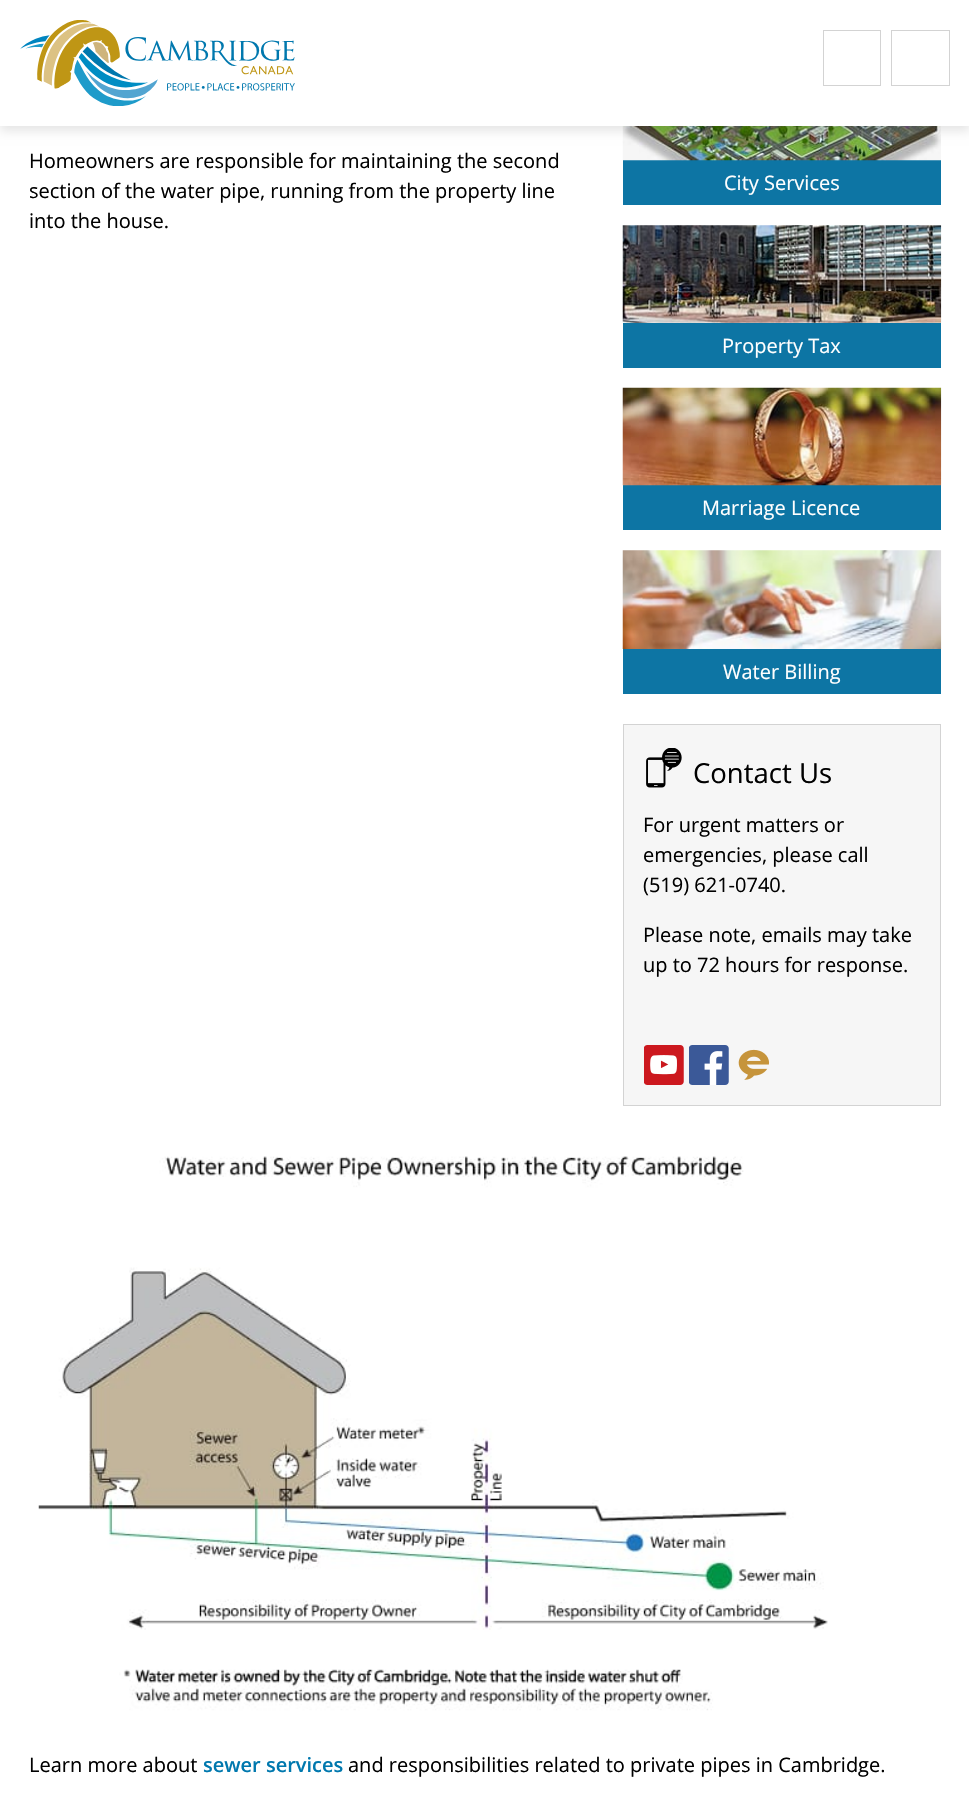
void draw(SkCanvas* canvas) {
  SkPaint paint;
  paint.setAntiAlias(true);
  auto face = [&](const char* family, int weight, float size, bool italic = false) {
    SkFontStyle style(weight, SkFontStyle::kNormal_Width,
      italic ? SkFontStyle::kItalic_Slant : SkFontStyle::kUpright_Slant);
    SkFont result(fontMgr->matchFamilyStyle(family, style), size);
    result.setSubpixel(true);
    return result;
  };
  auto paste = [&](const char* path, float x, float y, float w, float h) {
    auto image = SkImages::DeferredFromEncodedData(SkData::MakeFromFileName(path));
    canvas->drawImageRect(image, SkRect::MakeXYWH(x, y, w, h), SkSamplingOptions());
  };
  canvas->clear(0xffffffff);
  paint.setColor(0xff0d75a4);
  canvas->drawRect(SkRect::MakeXYWH(623, 160, 318, 45), paint);
  paste("img/3.png", 622, 126, 319, 35);
  paint.setColor(0x1a000000);
  paint.setMaskFilter(SkMaskFilter::MakeBlur(kNormal_SkBlurStyle, 5));
  canvas->drawRect(SkRect::MakeXYWH(0, -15, 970, 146), paint);
  paint.setMaskFilter(nullptr);
  paint.setColor(0xffffffff);
  canvas->drawRect(SkRect::MakeXYWH(0, 0, 969, 126), paint);
  paste("img/1.png", 20, 20, 275, 86);
  paint.setStroke(true);
  paint.setStrokeWidth(1);
  paint.setColor(0xffd3d3d3);
  canvas->drawRect(SkRect::MakeXYWH(823.5f, 30.5f, 57, 55), paint);
  canvas->drawRect(SkRect::MakeXYWH(891.5f, 30.5f, 58, 55), paint);
  paste("img/2.png", 38, 1156, 790, 555);
  paste("img/4.png", 622, 225, 320, 98);
  paint.setStroke(false);
  paint.setColor(0xff0d75a4);
  canvas->drawRect(SkRect::MakeXYWH(623, 323, 318, 45), paint);
  canvas->drawRect(SkRect::MakeXYWH(623, 485, 318, 45), paint);
  paste("img/5.png", 622, 387, 320, 99);
  paste("img/6.png", 622, 550, 320, 99);
  canvas->drawRect(SkRect::MakeXYWH(623, 649, 318, 45), paint);
  paint.setColor(0xfff6f6f6);
  canvas->drawRect(SkRect::MakeXYWH(623.5f, 724.5f, 317, 381), paint);
  paint.setStroke(true);
  paint.setColor(0xffd3d3d3);
  canvas->drawRect(SkRect::MakeXYWH(623.5f, 724.5f, 317, 381), paint);
  paste("img/7.png", 646, 748, 36, 40);
  paste("img/8.png", 644, 1045, 40, 40);
  paste("img/9.png", 689, 1045, 40, 40);
  paste("img/10.png", 738, 1049, 32, 31);
  auto f0 = face("Open Sans", 400, 20);
  paint.setStroke(false);
  paint.setColor(0xff000000);
  {
    const struct { const char* s; float x, y; } items[] = {
      {"Homeowners are responsible for maintaining the second", 29, 168},
      {"section of the water pipe, running from the property line", 29, 198},
      {"into the house.", 29, 228},
      {"Learn more about", 29, 1772},
    };
    for (auto [s, x, y] : items) {
      canvas->drawString(s, x, y, f0, paint);
    }
  }
  auto f1 = face("Open Sans", 600, 20);
  paint.setColor(0xff0078ae);
  canvas->drawString("sewer services", 203, 1772, f1, paint);
  paint.setColor(0xff000000);
  canvas->drawString("and responsibilities related to private pipes in Cambridge.", 348, 1772, f0, paint);
  paint.setColor(0xffffffff);
  {
    const struct { const char* s; float x, y; } items[] = {
      {"City Services", 724, 190},
      {"Property Tax", 722, 353},
      {"Marriage Licence", 702, 515},
      {"Water Billing", 723, 679},
    };
    for (auto [s, x, y] : items) {
      canvas->drawString(s, x, y, f0, paint);
    }
  }
  auto f2 = face("Open Sans", 400, 27.5f);
  paint.setColor(0xff000000);
  canvas->drawString("Contact Us", 693, 783, f2, paint);
  {
    const struct { const char* s; float x, y; } items[] = {
      {"For urgent matters or", 643, 832},
      {"emergencies, please call", 643, 862},
      {"(519) 621-0740.", 643, 892},
      {"Please note, emails may take", 643, 942},
      {"up to 72 hours for response.", 643, 972},
    };
    for (auto [s, x, y] : items) {
      canvas->drawString(s, x, y, f0, paint);
    }
  }
}
